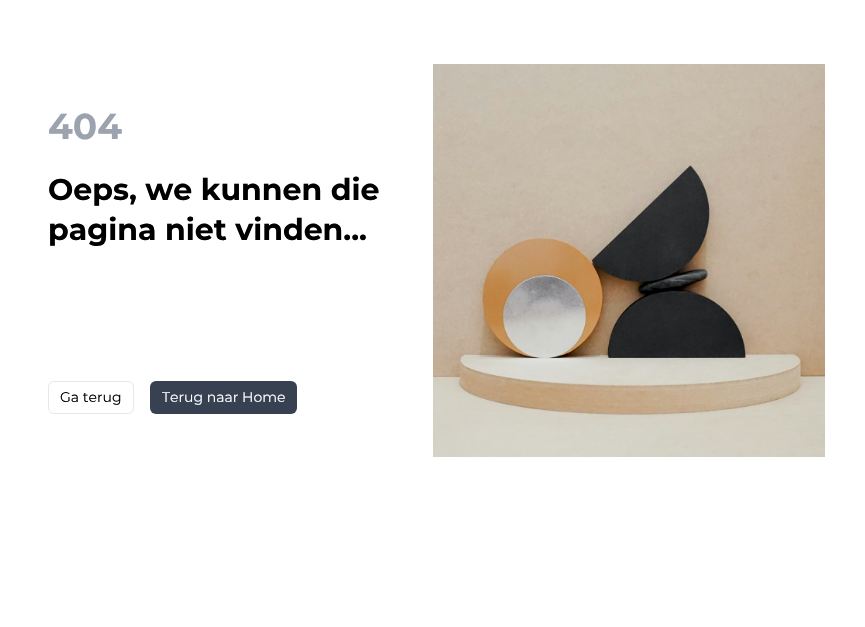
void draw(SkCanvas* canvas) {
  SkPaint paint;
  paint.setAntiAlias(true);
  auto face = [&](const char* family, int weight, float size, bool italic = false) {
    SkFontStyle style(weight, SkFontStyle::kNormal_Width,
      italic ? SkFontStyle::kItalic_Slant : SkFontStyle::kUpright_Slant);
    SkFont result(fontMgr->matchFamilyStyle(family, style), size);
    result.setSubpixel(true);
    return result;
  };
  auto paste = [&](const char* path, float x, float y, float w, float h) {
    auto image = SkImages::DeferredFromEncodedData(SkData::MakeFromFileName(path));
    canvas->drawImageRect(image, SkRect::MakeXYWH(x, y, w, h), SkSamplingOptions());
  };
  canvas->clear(0xffffffff);
  paint.setStroke(true);
  paint.setStrokeWidth(1);
  paint.setColor(0xffe5e7eb);
  canvas->drawRoundRect(SkRect::MakeXYWH(48.5f, 381.5f, 85, 32), 5.5f, 5.5f, paint);
  paint.setStroke(false);
  paint.setColor(0xff374151);
  canvas->drawRoundRect(SkRect::MakeXYWH(150, 381, 147, 33), 6, 6, paint);
  paste("img/1.png", 433, 64, 392, 393);
  auto f0 = face("Montserrat", 700, 36);
  paint.setColor(0xff9ca3af);
  canvas->drawString("404", 48, 139, f0, paint);
  auto f1 = face("Montserrat", 700, 30);
  paint.setColor(0xff000000);
  canvas->drawString("Oeps, we kunnen die", 48, 200, f1, paint);
  canvas->drawString("pagina niet vinden...", 48, 240, f1, paint);
  auto f2 = face("Montserrat", 400, 14);
  canvas->drawString("Ga terug", 60, 402, f2, paint);
  paint.setColor(0xffffffff);
  canvas->drawString("Terug naar Home", 162, 402, f2, paint);
}
